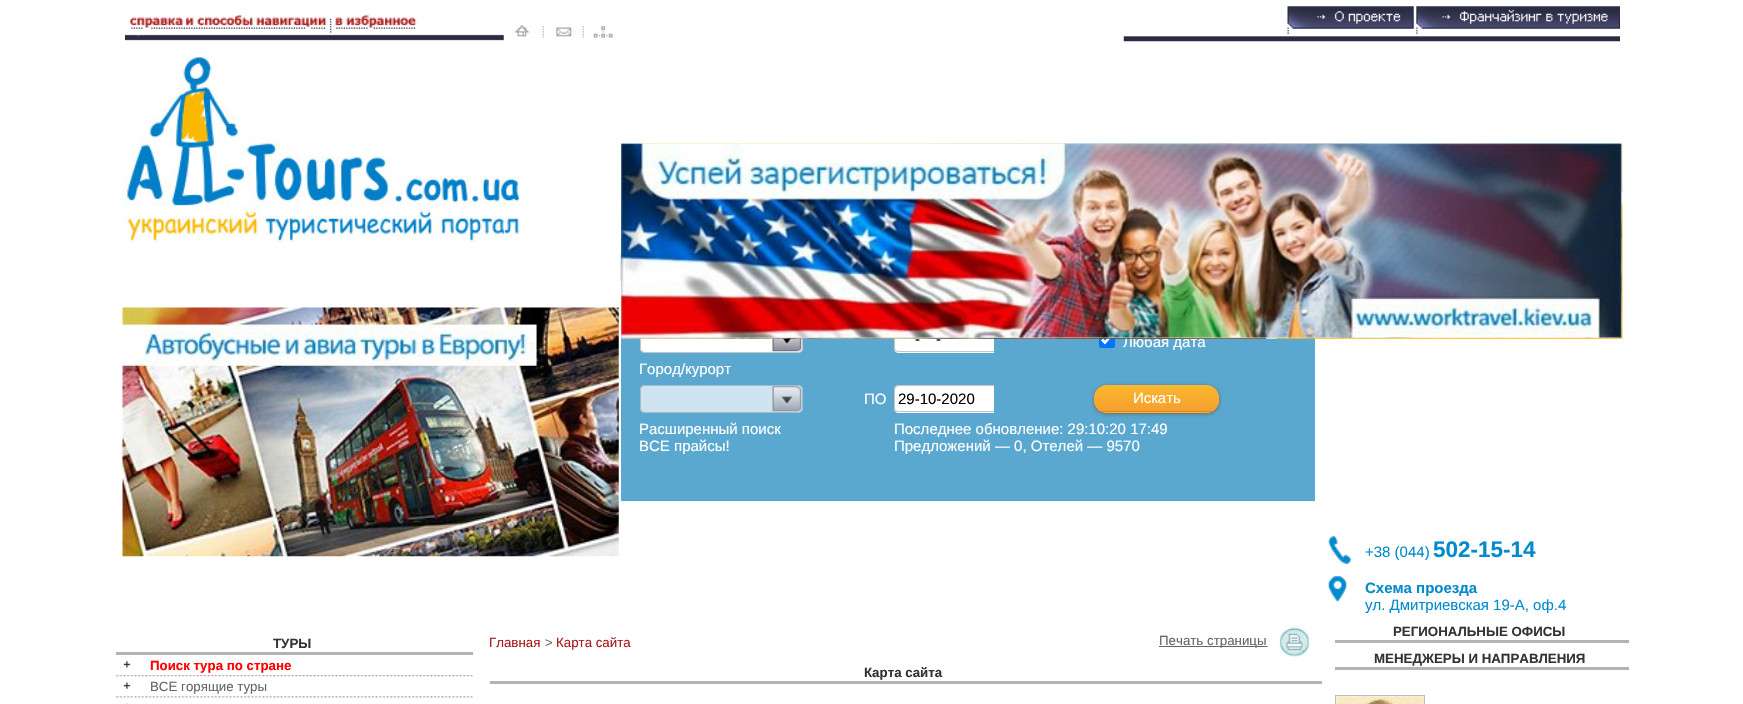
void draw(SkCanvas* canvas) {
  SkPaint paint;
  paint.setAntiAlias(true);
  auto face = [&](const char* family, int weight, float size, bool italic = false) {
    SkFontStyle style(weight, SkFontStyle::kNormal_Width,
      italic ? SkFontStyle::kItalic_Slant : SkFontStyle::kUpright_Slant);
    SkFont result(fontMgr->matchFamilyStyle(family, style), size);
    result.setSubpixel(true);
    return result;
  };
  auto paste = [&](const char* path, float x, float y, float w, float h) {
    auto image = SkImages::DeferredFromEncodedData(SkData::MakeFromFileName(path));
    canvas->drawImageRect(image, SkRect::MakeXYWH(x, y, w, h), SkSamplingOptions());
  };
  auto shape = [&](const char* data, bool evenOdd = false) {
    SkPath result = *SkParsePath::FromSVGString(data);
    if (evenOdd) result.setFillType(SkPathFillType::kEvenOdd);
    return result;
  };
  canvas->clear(0xffffffff);
  paste("img/1.png", 125, 14, 488, 27);
  paste("img/2.png", 1123, 6, 497, 36);
  paste("img/3.png", 122, 56, 398, 187);
  paste("img/10.png", 122, 307, 497, 250);
  paint.setColor(0xff5aa8cf);
  canvas->drawRect(SkRect::MakeXYWH(621, 253, 694, 248), paint);
  paint.setColor(0xff666666);
  paint.setMaskFilter(SkMaskFilter::MakeBlur(kNormal_SkBlurStyle, 0.5f));
  canvas->drawRect(SkRect::MakeXYWH(621, 254, 694, 27), paint);
  paint.setMaskFilter(nullptr);
  paint.setColor(0xffffffff);
  canvas->drawRoundRect(SkRect::MakeXYWH(640, 325, 163, 28), 5, 5, paint);
  paste("img/11.png", 772, 338, 30, 14);
  paint.setStroke(true);
  paint.setStrokeWidth(1);
  paint.setColor(0xffc4c4c4);
  canvas->drawRoundRect(SkRect::MakeXYWH(640.5f, 325.5f, 162, 27), 4.5f, 4.5f, paint);
  paint.setStroke(false);
  paint.setColor(0xffffffff);
  canvas->drawPath(shape("M899 325H994V353H899C896 353 894 351 894 348V330C894 327 896 325 899 325Z"), paint);
  paint.setColor(0xffc4c4c4);
  canvas->drawPath(shape("M899 325H994V352H899C896 352 894 350 894 348V330C894 327 896 325 899 325ZM899 326H994V351H899C897 351 895 350 895 348V330C895 328 897 326 899 326Z", true), paint);
  paint.setColor(0xff0075ff);
  canvas->drawRoundRect(SkRect::MakeXYWH(1099, 331, 16, 17), 2.5f, 2.5f, paint);
  paint.setStroke(true);
  paint.setStrokeWidth(2.6f);
  paint.setColor(0xffffffff);
  canvas->drawPath(shape("M1102 339.5L1105 342.5L1112 334.5"), paint);
  paint.setStroke(false);
  paint.setColor(0xffcee5f1);
  canvas->drawRoundRect(SkRect::MakeXYWH(640, 385, 163, 28), 5, 5, paint);
  paste("img/12.png", 772, 386, 30, 26);
  paint.setStroke(true);
  paint.setStrokeWidth(1);
  paint.setColor(0xffa4bcc7);
  canvas->drawRoundRect(SkRect::MakeXYWH(640.5f, 385.5f, 162, 27), 4.5f, 4.5f, paint);
  paint.setStroke(false);
  paint.setColor(0xffffffff);
  canvas->drawPath(shape("M899 385H994V413H899C896 413 894 411 894 408V390C894 387 896 385 899 385Z"), paint);
  paint.setColor(0xffc4c4c4);
  canvas->drawPath(shape("M899 385H994V412H899C896 412 894 410 894 408V390C894 387 896 385 899 385ZM899 386H994V411H899C897 411 895 410 895 408V390C895 388 897 386 899 386Z", true), paint);
  paint.setColor(0xff666666);
  paint.setMaskFilter(SkMaskFilter::MakeBlur(kNormal_SkBlurStyle, 2));
  canvas->drawRoundRect(SkRect::MakeXYWH(1094, 386, 125, 28), 13, 13, paint);
  paint.setMaskFilter(nullptr);
  paint.setColor(0xfffab72e);
  canvas->drawRoundRect(SkRect::MakeXYWH(1094, 385, 125, 28), 13, 13, paint);
  canvas->save();
  canvas->clipPath(shape("M1107 385H1206C1213 385 1219 391 1219 398V400C1219 407 1213 413 1206 413H1107C1100 413 1094 407 1094 400V398C1094 391 1100 385 1107 385Z"), true);
  {
    const SkColor colors[] = {0xfffab72e, 0xfff69f2e};
    const float stops[] = {0, 1};
    const SkPoint ends[] = {{1156, 385}, {1156, 411}};
    paint.setShader(SkGradientShader::MakeLinear(ends, colors, stops, 2, SkTileMode::kClamp));
    paint.setAlpha(255);
  }
  canvas->drawPath(shape("M1107 385H1206C1213 385 1219 391 1219 398V411H1094V398C1094 391 1100 385 1107 385Z"), paint);
  {
    const SkColor colors[] = {0xfffab72e, 0xfff69f2e};
    const float stops[] = {0, 1};
    const SkPoint ends[] = {{1156, 411}, {1156, 438}};
    paint.setShader(SkGradientShader::MakeLinear(ends, colors, stops, 2, SkTileMode::kClamp));
    paint.setAlpha(255);
  }
  canvas->drawRect(SkRect::MakeXYWH(1094, 412, 125, 1), paint);
  canvas->restore();
  paint.setShader(nullptr);
  paint.setColor(0xffe18120);
  canvas->drawRect(SkRect::MakeXYWH(1100, 411, 113, 1), paint);
  paste("img/13.png", 1328, 536, 24, 28);
  paste("img/14.png", 1328, 576, 19, 26);
  paint.setColor(0xffb3b3b3);
  canvas->drawRect(SkRect::MakeXYWH(116, 652, 357, 3), paint);
  paste("img/15.png", 123, 661, 8, 7);
  paste("img/16.png", 116, 675, 357, 2);
  paste("img/17.png", 123, 682, 8, 7);
  paste("img/18.png", 116, 696, 357, 2);
  paste("img/19.png", 126, 703, 2, 1);
  paint.setColor(0xff666666);
  canvas->drawRect(SkRect::MakeXYWH(1159, 646, 109, 1), paint);
  paste("img/20.png", 1267, 627, 42, 30);
  {
    const struct { float x, y, w, h; SkColor color; } items[] = {
      {490, 681, 832, 3, 0xffb3b3b3},
      {1335, 640, 294, 3, 0xffb3b3b3},
      {1335, 667, 294, 3, 0xffb3b3b3},
      {1335, 695, 90, 9, 0xffbabdce},
      {1336, 696, 88, 8, 0xffffffff},
    };
    for (auto [x, y, w, h, color] : items) {
      paint.setColor(color);
      canvas->drawRect(SkRect::MakeXYWH(x, y, w, h), paint);
    }
  }
  paste("img/21.png", 1336, 696, 88, 8);
  auto f0 = face("Liberation Sans", 400, 15);
  paint.setColor(0xff000000);
  canvas->drawString("-", 915, 344, f0, paint);
  canvas->drawString("-", 936, 344, f0, paint);
  paint.setColor(0xffffffff);
  canvas->drawString("Любая дата", 1123, 347, f0, paint);
  paste("img/4.png", 621, 143, 1002, 196);
  paste("img/5.png", 621, 143, 1001, 195);
  paste("img/6.png", 621, 143, 1001, 195);
  paste("img/7.png", 621, 143, 1001, 195);
  paste("img/8.png", 621, 143, 1001, 195);
  paste("img/9.png", 621, 143, 1001, 195);
  canvas->drawString("Город/курорт", 639, 374, f0, paint);
  canvas->drawString("ПО", 864, 404, f0, paint);
  paint.setColor(0xff000000);
  canvas->drawString("29-10-2020", 898, 404, f0, paint);
  paint.setColor(0xffffffff);
  {
    const struct { const char* s; float x, y; } items[] = {
      {"Искать", 1133, 403},
      {"Расширенный поиск", 639, 434},
      {"ВСЕ прайсы!", 639, 451},
      {"Последнее обновление: 29:10:20 17:49", 894, 434},
      {"Предложений — 0, Отелей — 9570", 894, 451},
    };
    for (auto [s, x, y] : items) {
      canvas->drawString(s, x, y, f0, paint);
    }
  }
  paint.setColor(0xff038acc);
  canvas->drawString("+38 (044)", 1365, 557, f0, paint);
  auto f1 = face("Liberation Sans", 700, 22.5f);
  canvas->drawString("502-15-14", 1433, 557, f1, paint);
  auto f2 = face("Liberation Sans", 700, 15);
  canvas->drawString("Схема проезда", 1365, 593, f2, paint);
  canvas->drawString("ул. Дмитриевская 19-А, оф.4", 1365, 610, f0, paint);
  auto f3 = face("Liberation Sans", 700, 13.3f);
  paint.setColor(0xff333333);
  canvas->drawString("ТУРЫ", 273, 648, f3, paint);
  paint.setColor(0xffff0000);
  canvas->drawString("Поиск тура по стране", 150, 670, f3, paint);
  auto f4 = face("Liberation Sans", 400, 13.3f);
  paint.setColor(0xff666666);
  canvas->drawString("ВСЕ горящие туры", 150, 691, f4, paint);
  paint.setColor(0xffa91a1a);
  canvas->drawString("Главная", 489, 647, f4, paint);
  paint.setColor(0xff666666);
  canvas->drawString(">", 545, 647, f4, paint);
  paint.setColor(0xffa91a1a);
  canvas->drawString("Карта сайта", 556, 647, f4, paint);
  paint.setColor(0xff666666);
  canvas->drawString("Печать страницы", 1159, 645, f4, paint);
  paint.setColor(0xff333333);
  {
    const struct { const char* s; float x, y; } items[] = {
      {"Карта сайта", 864, 677},
      {"РЕГИОНАЛЬНЫЕ ОФИСЫ", 1393, 636},
      {"МЕНЕДЖЕРЫ И НАПРАВЛЕНИЯ", 1374, 663},
    };
    for (auto [s, x, y] : items) {
      canvas->drawString(s, x, y, f3, paint);
    }
  }
}
